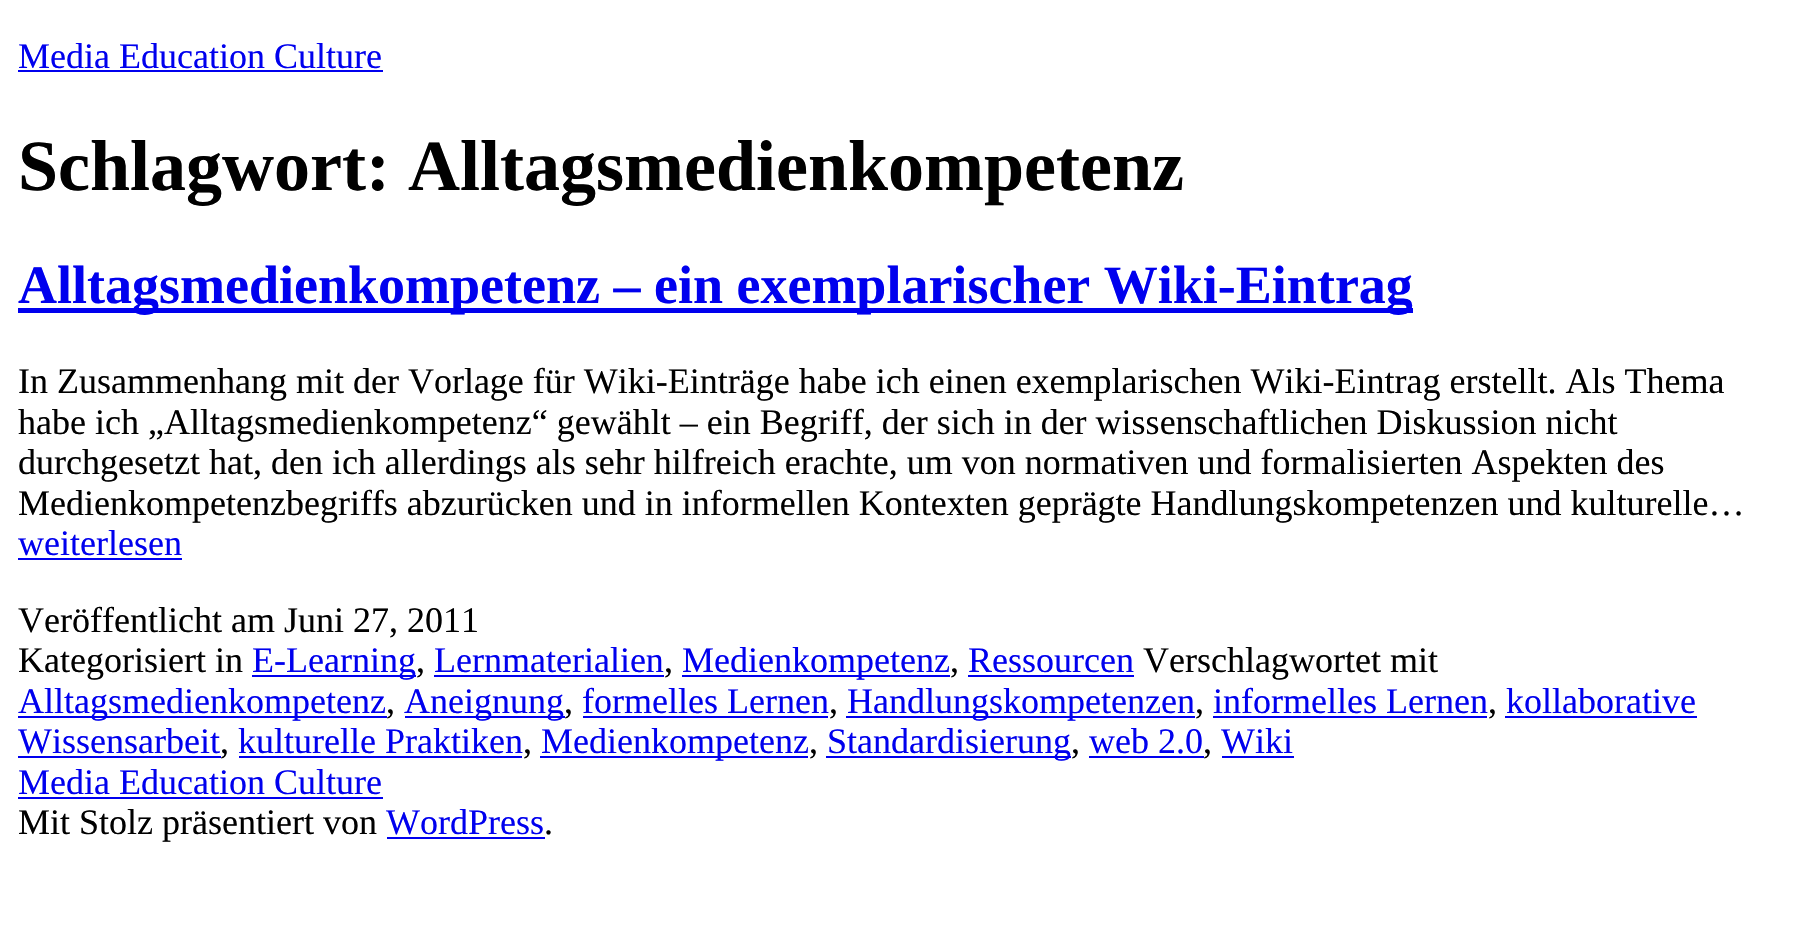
void draw(SkCanvas* canvas) {
  SkPaint paint;
  paint.setAntiAlias(true);
  auto face = [&](const char* family, int weight, float size, bool italic = false) {
    SkFontStyle style(weight, SkFontStyle::kNormal_Width,
      italic ? SkFontStyle::kItalic_Slant : SkFontStyle::kUpright_Slant);
    SkFont result(fontMgr->matchFamilyStyle(family, style), size);
    result.setSubpixel(true);
    return result;
  };
  canvas->clear(0xffffffff);
  {
    const struct { float x, y, w, h; SkColor color; } items[] = {
      {18, 70, 365, 2, 0xff0000ee},
      {18, 308, 1395, 5, 0xff0000ee},
      {18, 558, 164, 2, 0xff0000ee},
      {252, 675, 164, 2, 0xff0000ee},
      {434, 675, 230, 2, 0xff0000ee},
      {682, 675, 268, 2, 0xff0000ee},
      {968, 675, 166, 2, 0xff0000ee},
      {18, 716, 369, 2, 0xff0000ee},
      {405, 716, 160, 2, 0xff0000ee},
      {583, 716, 245, 2, 0xff0000ee},
      {846, 716, 349, 2, 0xff0000ee},
      {1213, 716, 274, 2, 0xff0000ee},
      {1505, 716, 192, 2, 0xff0000ee},
      {18, 756, 203, 2, 0xff0000ee},
      {239, 756, 283, 2, 0xff0000ee},
      {540, 756, 268, 2, 0xff0000ee},
      {826, 756, 245, 2, 0xff0000ee},
      {1089, 756, 115, 2, 0xff0000ee},
      {1222, 756, 72, 2, 0xff0000ee},
      {18, 797, 365, 2, 0xff0000ee},
      {387, 837, 158, 2, 0xff0000ee},
    };
    for (auto [x, y, w, h, color] : items) {
      paint.setColor(color);
      canvas->drawRect(SkRect::MakeXYWH(x, y, w, h), paint);
    }
  }
  auto f0 = face("Liberation Serif", 400, 36);
  canvas->drawString("Media Education Culture", 18, 68, f0, paint);
  auto f1 = face("Liberation Serif", 700, 72);
  paint.setColor(0xff000000);
  canvas->drawString("Schlagwort: Alltagsmedienkompetenz", 18, 190, f1, paint);
  auto f2 = face("Liberation Serif", 700, 54);
  paint.setColor(0xff0000ee);
  canvas->drawString("Alltagsmedienkompetenz – ein exemplarischer Wiki-Eintrag", 18, 303, f2, paint);
  paint.setColor(0xff000000);
  {
    const struct { const char* s; float x, y; } items[] = {
      {"In Zusammenhang mit der Vorlage für Wiki-Einträge habe ich einen exemplarischen Wiki-Eintrag erstellt. Als Thema", 18, 393},
      {"habe ich „Alltagsmedienkompetenz“ gewählt – ein Begriff, der sich in der wissenschaftlichen Diskussion nicht", 18, 434},
      {"durchgesetzt hat, den ich allerdings als sehr hilfreich erachte, um von normativen und formalisierten Aspekten des", 18, 474},
      {"Medienkompetenzbegriffs abzurücken und in informellen Kontexten geprägte Handlungskompetenzen und kulturelle…", 18, 515},
    };
    for (auto [s, x, y] : items) {
      canvas->drawString(s, x, y, f0, paint);
    }
  }
  paint.setColor(0xff0000ee);
  canvas->drawString("weiterlesen", 18, 555, f0, paint);
  paint.setColor(0xff000000);
  canvas->drawString("Veröffentlicht am Juni 27, 2011", 18, 632, f0, paint);
  canvas->drawString("Kategorisiert in", 18, 672, f0, paint);
  paint.setColor(0xff0000ee);
  canvas->drawString("E-Learning", 252, 672, f0, paint);
  paint.setColor(0xff000000);
  canvas->drawString(",", 416, 672, f0, paint);
  paint.setColor(0xff0000ee);
  canvas->drawString("Lernmaterialien", 434, 672, f0, paint);
  paint.setColor(0xff000000);
  canvas->drawString(",", 664, 672, f0, paint);
  paint.setColor(0xff0000ee);
  canvas->drawString("Medienkompetenz", 682, 672, f0, paint);
  paint.setColor(0xff000000);
  canvas->drawString(",", 950, 672, f0, paint);
  paint.setColor(0xff0000ee);
  canvas->drawString("Ressourcen", 968, 672, f0, paint);
  paint.setColor(0xff000000);
  canvas->drawString("Verschlagwortet mit", 1143, 672, f0, paint);
  paint.setColor(0xff0000ee);
  canvas->drawString("Alltagsmedienkompetenz", 18, 713, f0, paint);
  paint.setColor(0xff000000);
  canvas->drawString(",", 386, 713, f0, paint);
  paint.setColor(0xff0000ee);
  canvas->drawString("Aneignung", 404, 713, f0, paint);
  paint.setColor(0xff000000);
  canvas->drawString(",", 564, 713, f0, paint);
  paint.setColor(0xff0000ee);
  canvas->drawString("formelles Lernen", 582, 713, f0, paint);
  paint.setColor(0xff000000);
  canvas->drawString(",", 829, 713, f0, paint);
  paint.setColor(0xff0000ee);
  canvas->drawString("Handlungskompetenzen", 847, 713, f0, paint);
  paint.setColor(0xff000000);
  canvas->drawString(",", 1195, 713, f0, paint);
  paint.setColor(0xff0000ee);
  canvas->drawString("informelles Lernen", 1213, 713, f0, paint);
  paint.setColor(0xff000000);
  canvas->drawString(",", 1488, 713, f0, paint);
  paint.setColor(0xff0000ee);
  canvas->drawString("kollaborative", 1506, 713, f0, paint);
  canvas->drawString("Wissensarbeit", 18, 753, f0, paint);
  paint.setColor(0xff000000);
  canvas->drawString(",", 220, 753, f0, paint);
  paint.setColor(0xff0000ee);
  canvas->drawString("kulturelle Praktiken", 238, 753, f0, paint);
  paint.setColor(0xff000000);
  canvas->drawString(",", 523, 753, f0, paint);
  paint.setColor(0xff0000ee);
  canvas->drawString("Medienkompetenz", 541, 753, f0, paint);
  paint.setColor(0xff000000);
  canvas->drawString(",", 809, 753, f0, paint);
  paint.setColor(0xff0000ee);
  canvas->drawString("Standardisierung", 827, 753, f0, paint);
  paint.setColor(0xff000000);
  canvas->drawString(",", 1071, 753, f0, paint);
  paint.setColor(0xff0000ee);
  canvas->drawString("web 2.0", 1089, 753, f0, paint);
  paint.setColor(0xff000000);
  canvas->drawString(",", 1203, 753, f0, paint);
  paint.setColor(0xff0000ee);
  canvas->drawString("Wiki", 1221, 753, f0, paint);
  canvas->drawString("Media Education Culture", 18, 794, f0, paint);
  paint.setColor(0xff000000);
  canvas->drawString("Mit Stolz präsentiert von", 18, 834, f0, paint);
  paint.setColor(0xff0000ee);
  canvas->drawString("WordPress", 386, 834, f0, paint);
  paint.setColor(0xff000000);
  canvas->drawString(".", 544, 834, f0, paint);
}
